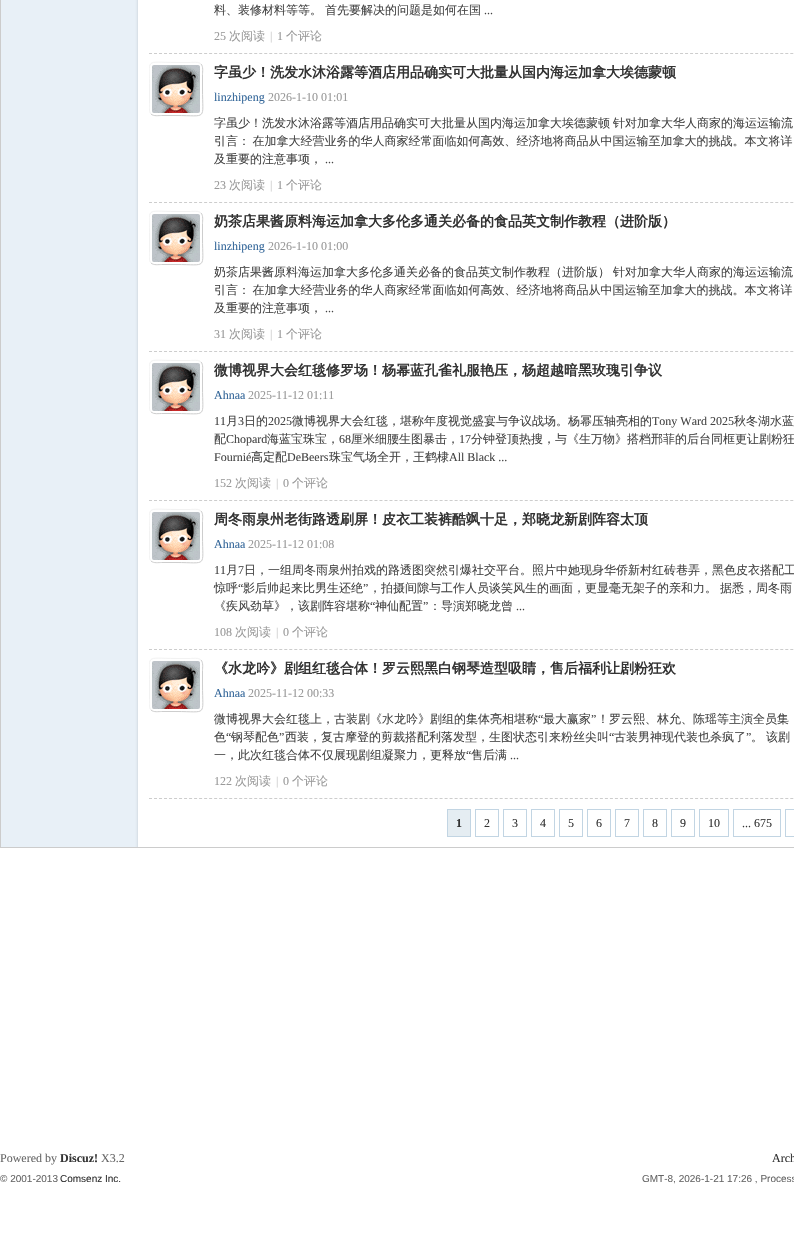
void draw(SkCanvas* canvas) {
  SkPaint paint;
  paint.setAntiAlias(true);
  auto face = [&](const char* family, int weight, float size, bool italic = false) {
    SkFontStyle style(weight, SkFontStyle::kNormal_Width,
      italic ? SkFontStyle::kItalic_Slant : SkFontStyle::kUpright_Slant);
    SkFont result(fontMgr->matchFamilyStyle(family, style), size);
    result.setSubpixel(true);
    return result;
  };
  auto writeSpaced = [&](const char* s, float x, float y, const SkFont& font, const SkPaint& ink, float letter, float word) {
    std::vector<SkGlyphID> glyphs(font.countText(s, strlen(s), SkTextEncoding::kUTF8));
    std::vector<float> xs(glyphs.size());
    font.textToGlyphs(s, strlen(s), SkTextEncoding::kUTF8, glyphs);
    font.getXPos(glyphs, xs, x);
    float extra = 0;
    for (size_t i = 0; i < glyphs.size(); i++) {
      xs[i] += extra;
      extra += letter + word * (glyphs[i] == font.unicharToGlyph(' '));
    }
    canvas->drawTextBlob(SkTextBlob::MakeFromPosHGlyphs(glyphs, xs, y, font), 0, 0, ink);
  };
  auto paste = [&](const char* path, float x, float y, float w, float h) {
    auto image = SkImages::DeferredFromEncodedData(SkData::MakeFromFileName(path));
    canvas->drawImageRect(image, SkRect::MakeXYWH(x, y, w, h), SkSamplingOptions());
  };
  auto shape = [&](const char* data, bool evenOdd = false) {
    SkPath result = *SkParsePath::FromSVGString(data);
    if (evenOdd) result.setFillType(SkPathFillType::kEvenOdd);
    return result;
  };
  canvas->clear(0xffffffff);
  paste("img/1.png", 1, 0, 137, 847);
  paint.setStroke(true);
  paint.setStrokeWidth(1);
  paint.setColor(0xffcccccc);
  canvas->drawRect(SkRect::MakeXYWH(0.5f, -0.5f, 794, 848), paint);
  paint.setColor(0xffcdcdcd);
  paint.setPathEffect(SkDashPathEffect::Make({{3, 2.01f}}, 0));
  canvas->drawPath(shape("M149 53.5H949"), paint);
  paint.setPathEffect(nullptr);
  paint.setPathEffect(SkDashPathEffect::Make({{3, 2.01f}}, 0));
  canvas->drawPath(shape("M149 202.5H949"), paint);
  paint.setPathEffect(nullptr);
  canvas->drawPath(shape("M201 64C203.5 66.5 202.5 72 202.5 74.5V89C202.5 121 208 115.5 176 115.5H161.5C159 115.5 153.5 116.5 151 114"), paint);
  canvas->save();
  canvas->clipRect(SkRect::MakeXYWH(149, 0, 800, 847));
  paint.setColor(0xfff2f2f2);
  canvas->drawPath(shape("M151 114C148.5 111.5 149.5 106 149.5 103.5V89C149.5 57 144 62.5 176 62.5H190.5C193 62.5 198.5 61.5 201 64"), paint);
  canvas->restore();
  paste("img/2.png", 152, 65, 48, 48);
  paint.setColor(0xffcdcdcd);
  paint.setPathEffect(SkDashPathEffect::Make({{3, 2.01f}}, 0));
  canvas->drawPath(shape("M149 351.5H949"), paint);
  paint.setPathEffect(nullptr);
  canvas->drawPath(shape("M201 213C203.5 215.5 202.5 221 202.5 223.5V238C202.5 270 208 264.5 176 264.5H161.5C159 264.5 153.5 265.5 151 263"), paint);
  canvas->save();
  canvas->clipRect(SkRect::MakeXYWH(149, 0, 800, 847));
  paint.setColor(0xfff2f2f2);
  canvas->drawPath(shape("M151 263C148.5 260.5 149.5 255 149.5 252.5V238C149.5 206 144 211.5 176 211.5H190.5C193 211.5 198.5 210.5 201 213"), paint);
  canvas->restore();
  paste("img/2.png", 152, 214, 48, 48);
  paint.setColor(0xffcdcdcd);
  paint.setPathEffect(SkDashPathEffect::Make({{3, 2.01f}}, 0));
  canvas->drawPath(shape("M149 500.5H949"), paint);
  paint.setPathEffect(nullptr);
  canvas->drawPath(shape("M201 362C203.5 364.5 202.5 370 202.5 372.5V387C202.5 419 208 413.5 176 413.5H161.5C159 413.5 153.5 414.5 151 412"), paint);
  canvas->save();
  canvas->clipRect(SkRect::MakeXYWH(149, 0, 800, 847));
  paint.setColor(0xfff2f2f2);
  canvas->drawPath(shape("M151 412C148.5 409.5 149.5 404 149.5 401.5V387C149.5 355 144 360.5 176 360.5H190.5C193 360.5 198.5 359.5 201 362"), paint);
  canvas->restore();
  paste("img/2.png", 152, 363, 48, 48);
  paint.setColor(0xffcdcdcd);
  paint.setPathEffect(SkDashPathEffect::Make({{3, 2.01f}}, 0));
  canvas->drawPath(shape("M149 649.5H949"), paint);
  paint.setPathEffect(nullptr);
  canvas->drawPath(shape("M201 511C203.5 513.5 202.5 519 202.5 521.5V536C202.5 568 208 562.5 176 562.5H161.5C159 562.5 153.5 563.5 151 561"), paint);
  canvas->save();
  canvas->clipRect(SkRect::MakeXYWH(149, 0, 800, 847));
  paint.setColor(0xfff2f2f2);
  canvas->drawPath(shape("M151 561C148.5 558.5 149.5 553 149.5 550.5V536C149.5 504 144 509.5 176 509.5H190.5C193 509.5 198.5 508.5 201 511"), paint);
  canvas->restore();
  paste("img/2.png", 152, 512, 48, 48);
  paint.setColor(0xffcdcdcd);
  paint.setPathEffect(SkDashPathEffect::Make({{3, 2.01f}}, 0));
  canvas->drawPath(shape("M149 798.5H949"), paint);
  paint.setPathEffect(nullptr);
  canvas->drawPath(shape("M201 660C203.5 662.5 202.5 668 202.5 670.5V685C202.5 717 208 711.5 176 711.5H161.5C159 711.5 153.5 712.5 151 710"), paint);
  canvas->save();
  canvas->clipRect(SkRect::MakeXYWH(149, 0, 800, 847));
  paint.setColor(0xfff2f2f2);
  canvas->drawPath(shape("M151 710C148.5 707.5 149.5 702 149.5 699.5V685C149.5 653 144 658.5 176 658.5H190.5C193 658.5 198.5 657.5 201 660"), paint);
  canvas->restore();
  paste("img/2.png", 152, 661, 48, 48);
  paint.setStroke(false);
  paint.setColor(0xffe5edf2);
  canvas->drawRect(SkRect::MakeXYWH(447.5f, 809.5f, 23, 27), paint);
  paint.setStroke(true);
  paint.setColor(0xffc2d5e3);
  canvas->drawRect(SkRect::MakeXYWH(447.5f, 809.5f, 23, 27), paint);
  canvas->drawRect(SkRect::MakeXYWH(475.5f, 809.5f, 23, 27), paint);
  canvas->drawRect(SkRect::MakeXYWH(503.5f, 809.5f, 23, 27), paint);
  canvas->drawRect(SkRect::MakeXYWH(531.5f, 809.5f, 23, 27), paint);
  canvas->drawRect(SkRect::MakeXYWH(559.5f, 809.5f, 23, 27), paint);
  canvas->drawRect(SkRect::MakeXYWH(587.5f, 809.5f, 23, 27), paint);
  canvas->drawRect(SkRect::MakeXYWH(615.5f, 809.5f, 23, 27), paint);
  canvas->drawRect(SkRect::MakeXYWH(643.5f, 809.5f, 23, 27), paint);
  canvas->drawRect(SkRect::MakeXYWH(671.5f, 809.5f, 23, 27), paint);
  canvas->drawRect(SkRect::MakeXYWH(699.5f, 809.5f, 29, 27), paint);
  canvas->drawRect(SkRect::MakeXYWH(733.5f, 809.5f, 47, 27), paint);
  canvas->drawRect(SkRect::MakeXYWH(785.5f, 809.5f, 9, 27), paint);
  auto f0 = face("WenQuanYi Zen Hei", 500, 12);
  paint.setStroke(false);
  paint.setColor(0xff444444);
  canvas->drawString("料、装修材料等等。", 214, 14, f0, paint);
  canvas->drawString("首先要解决的问题是如何在国", 325, 14, f0, paint);
  auto f1 = face("Liberation Serif", 400, 12);
  canvas->drawString("...", 484, 14, f1, paint);
  paint.setColor(0xff999999);
  canvas->drawString("25", 214, 40, f1, paint);
  canvas->drawString("次阅读", 229, 40, f0, paint);
  paint.setColor(0xffcccccc);
  canvas->drawString("|", 270, 40, f1, paint);
  paint.setColor(0xff999999);
  canvas->drawString("1", 277, 40, f1, paint);
  canvas->drawString("个评论", 286, 40, f0, paint);
  auto f2 = face("WenQuanYi Zen Hei", 700, 14);
  paint.setColor(0xff333333);
  canvas->drawString("字虽少！洗发水沐浴露等酒店用品确实可大批量从国内海运加拿大埃德蒙顿", 214, 77, f2, paint);
  paint.setColor(0xff336699);
  canvas->drawString("linzhipeng", 214, 101, f1, paint);
  paint.setColor(0xff999999);
  canvas->drawString("2026-1-10 01:01", 268, 101, f1, paint);
  paint.setColor(0xff444444);
  canvas->drawString("字虽少！洗发水沐浴露等酒店用品确实可大批量从国内海运加拿大埃德蒙顿", 214, 127, f0, paint);
  canvas->drawString("针对加拿大华人商家的海运运输流", 613, 127, f0, paint);
  writeSpaced("引言： 在加拿大经营业务的华人商家经常面临如何高效、经济地将商品从中国运输至加拿大的挑战。本文将详", 214, 145, f0, paint, 0, -1);
  canvas->drawString("及重要的注意事项，", 214, 163, f0, paint);
  canvas->drawString("...", 325, 163, f1, paint);
  paint.setColor(0xff999999);
  canvas->drawString("23", 214, 189, f1, paint);
  canvas->drawString("次阅读", 229, 189, f0, paint);
  paint.setColor(0xffcccccc);
  canvas->drawString("|", 270, 189, f1, paint);
  paint.setColor(0xff999999);
  canvas->drawString("1", 277, 189, f1, paint);
  canvas->drawString("个评论", 286, 189, f0, paint);
  paint.setColor(0xff333333);
  canvas->drawString("奶茶店果酱原料海运加拿大多伦多通关必备的食品英文制作教程（进阶版）", 214, 226, f2, paint);
  paint.setColor(0xff336699);
  canvas->drawString("linzhipeng", 214, 250, f1, paint);
  paint.setColor(0xff999999);
  canvas->drawString("2026-1-10 01:00", 268, 250, f1, paint);
  paint.setColor(0xff444444);
  canvas->drawString("奶茶店果酱原料海运加拿大多伦多通关必备的食品英文制作教程（进阶版）", 214, 276, f0, paint);
  canvas->drawString("针对加拿大华人商家的海运运输流", 613, 276, f0, paint);
  writeSpaced("引言： 在加拿大经营业务的华人商家经常面临如何高效、经济地将商品从中国运输至加拿大的挑战。本文将详", 214, 294, f0, paint, 0, -1);
  canvas->drawString("及重要的注意事项，", 214, 312, f0, paint);
  canvas->drawString("...", 325, 312, f1, paint);
  paint.setColor(0xff999999);
  canvas->drawString("31", 214, 338, f1, paint);
  canvas->drawString("次阅读", 229, 338, f0, paint);
  paint.setColor(0xffcccccc);
  canvas->drawString("|", 270, 338, f1, paint);
  paint.setColor(0xff999999);
  canvas->drawString("1", 277, 338, f1, paint);
  canvas->drawString("个评论", 286, 338, f0, paint);
  paint.setColor(0xff333333);
  canvas->drawString("微博视界大会红毯修罗场！杨幂蓝孔雀礼服艳压，杨超越暗黑玫瑰引争议", 214, 375, f2, paint);
  paint.setColor(0xff336699);
  canvas->drawString("Ahnaa", 214, 399, f1, paint);
  paint.setColor(0xff999999);
  canvas->drawString("2025-11-12 01:11", 248, 399, f1, paint);
  paint.setColor(0xff444444);
  canvas->drawString("11", 214, 425, f1, paint);
  canvas->drawString("月", 226, 425, f0, paint);
  canvas->drawString("3", 238, 425, f1, paint);
  canvas->drawString("日的", 244, 425, f0, paint);
  canvas->drawString("2025", 268, 425, f1, paint);
  canvas->drawString("微博视界大会红毯，堪称年度视觉盛宴与争议战场。杨幂压轴亮相的", 292, 425, f0, paint);
  canvas->drawString("Tony Ward 2025", 652, 425, f1, paint);
  canvas->drawString("秋冬湖水蓝", 734, 425, f0, paint);
  canvas->drawString("配", 214, 443, f0, paint);
  canvas->drawString("Chopard", 226, 443, f1, paint);
  canvas->drawString("海蓝宝珠宝，", 267, 443, f0, paint);
  canvas->drawString("68", 339, 443, f1, paint);
  canvas->drawString("厘米细腰生图暴击，", 351, 443, f0, paint);
  canvas->drawString("17", 459, 443, f1, paint);
  canvas->drawString("分钟登顶热搜，与《生万物》搭档邢菲的后台同框更让剧粉狂", 471, 443, f0, paint);
  canvas->drawString("Fournié", 214, 461, f1, paint);
  canvas->drawString("高定配", 251, 461, f0, paint);
  canvas->drawString("DeBeers", 287, 461, f1, paint);
  canvas->drawString("珠宝气场全开，王鹤棣", 329, 461, f0, paint);
  canvas->drawString("All Black ...", 449, 461, f1, paint);
  paint.setColor(0xff999999);
  canvas->drawString("152", 214, 487, f1, paint);
  canvas->drawString("次阅读", 235, 487, f0, paint);
  paint.setColor(0xffcccccc);
  canvas->drawString("|", 276, 487, f1, paint);
  paint.setColor(0xff999999);
  canvas->drawString("0", 283, 487, f1, paint);
  canvas->drawString("个评论", 292, 487, f0, paint);
  paint.setColor(0xff333333);
  canvas->drawString("周冬雨泉州老街路透刷屏！皮衣工装裤酷飒十足，郑晓龙新剧阵容太顶", 214, 524, f2, paint);
  paint.setColor(0xff336699);
  canvas->drawString("Ahnaa", 214, 548, f1, paint);
  paint.setColor(0xff999999);
  canvas->drawString("2025-11-12 01:08", 248, 548, f1, paint);
  paint.setColor(0xff444444);
  canvas->drawString("11", 214, 574, f1, paint);
  canvas->drawString("月", 226, 574, f0, paint);
  canvas->drawString("7", 238, 574, f1, paint);
  canvas->drawString("日，一组周冬雨泉州拍戏的路透图突然引爆社交平台。照片中她现身华侨新村红砖巷弄，黑色皮衣搭配工", 244, 574, f0, paint);
  canvas->drawString("惊呼", 214, 592, f0, paint);
  canvas->drawString("“", 238, 592, f1, paint);
  canvas->drawString("影后帅起来比男生还绝", 243, 592, f0, paint);
  canvas->drawString("”", 363, 592, f1, paint);
  {
    const struct { const char* s; float x, y; } items[] = {
      {"，拍摄间隙与工作人员谈笑风生的画面，更显毫无架子的亲和力。", 369, 592},
      {"据悉，周冬雨", 720, 592},
      {"《疾风劲草》，该剧阵容堪称", 214, 610},
    };
    for (auto [s, x, y] : items) {
      canvas->drawString(s, x, y, f0, paint);
    }
  }
  canvas->drawString("“", 370, 610, f1, paint);
  canvas->drawString("神仙配置", 375, 610, f0, paint);
  canvas->drawString("”", 423, 610, f1, paint);
  canvas->drawString("：导演郑晓龙曾", 429, 610, f0, paint);
  canvas->drawString("...", 516, 610, f1, paint);
  paint.setColor(0xff999999);
  canvas->drawString("108", 214, 636, f1, paint);
  canvas->drawString("次阅读", 235, 636, f0, paint);
  paint.setColor(0xffcccccc);
  canvas->drawString("|", 276, 636, f1, paint);
  paint.setColor(0xff999999);
  canvas->drawString("0", 283, 636, f1, paint);
  canvas->drawString("个评论", 292, 636, f0, paint);
  paint.setColor(0xff333333);
  canvas->drawString("《水龙吟》剧组红毯合体！罗云熙黑白钢琴造型吸睛，售后福利让剧粉狂欢", 214, 673, f2, paint);
  paint.setColor(0xff336699);
  canvas->drawString("Ahnaa", 214, 697, f1, paint);
  paint.setColor(0xff999999);
  canvas->drawString("2025-11-12 00:33", 248, 697, f1, paint);
  paint.setColor(0xff444444);
  canvas->drawString("微博视界大会红毯上，古装剧《水龙吟》剧组的集体亮相堪称", 214, 723, f0, paint);
  canvas->drawString("“", 538, 723, f1, paint);
  canvas->drawString("最大赢家", 543, 723, f0, paint);
  canvas->drawString("”", 591, 723, f1, paint);
  canvas->drawString("！罗云熙、林允、陈瑶等主演全员集", 597, 723, f0, paint);
  canvas->drawString("色", 214, 741, f0, paint);
  canvas->drawString("“", 226, 741, f1, paint);
  canvas->drawString("钢琴配色", 231, 741, f0, paint);
  canvas->drawString("”", 279, 741, f1, paint);
  canvas->drawString("西装，复古摩登的剪裁搭配利落发型，生图状态引来粉丝尖叫", 285, 741, f0, paint);
  canvas->drawString("“", 609, 741, f1, paint);
  canvas->drawString("古装男神现代装也杀疯了", 614, 741, f0, paint);
  canvas->drawString("”", 746, 741, f1, paint);
  {
    const struct { const char* s; float x, y; } items[] = {
      {"该剧", 766, 741},
      {"。", 751, 741},
      {"一，此次红毯合体不仅展现剧组凝聚力，更释放", 214, 759},
    };
    for (auto [s, x, y] : items) {
      canvas->drawString(s, x, y, f0, paint);
    }
  }
  canvas->drawString("“", 466, 759, f1, paint);
  canvas->drawString("售后满", 471, 759, f0, paint);
  canvas->drawString("...", 510, 759, f1, paint);
  paint.setColor(0xff999999);
  canvas->drawString("122", 214, 785, f1, paint);
  canvas->drawString("次阅读", 235, 785, f0, paint);
  paint.setColor(0xffcccccc);
  canvas->drawString("|", 276, 785, f1, paint);
  paint.setColor(0xff999999);
  canvas->drawString("0", 283, 785, f1, paint);
  canvas->drawString("个评论", 292, 785, f0, paint);
  auto f3 = face("Liberation Serif", 700, 12);
  paint.setColor(0xff333333);
  canvas->drawString("1", 456, 827, f3, paint);
  {
    const struct { const char* s; float x, y; } items[] = {
      {"2", 484, 827},
      {"3", 512, 827},
      {"4", 540, 827},
      {"5", 568, 827},
      {"6", 596, 827},
      {"7", 624, 827},
      {"8", 652, 827},
      {"9", 680, 827},
      {"10", 708, 827},
      {"... 675", 742, 827},
    };
    for (auto [s, x, y] : items) {
      canvas->drawString(s, x, y, f1, paint);
    }
  }
  paint.setColor(0xff666666);
  canvas->drawString("Powered by", 0, 1162, f1, paint);
  paint.setColor(0xff333333);
  canvas->drawString("Discuz!", 60, 1162, f3, paint);
  paint.setColor(0xff666666);
  canvas->drawString("X3.2", 101, 1162, f1, paint);
  auto f4 = face("Liberation Sans", 400, 10);
  canvas->drawString("© 2001-2013", 0, 1182, f4, paint);
  paint.setColor(0xff333333);
  canvas->drawString("Comsenz Inc.", 60, 1182, f4, paint);
  canvas->drawString("Arch", 772, 1162, f1, paint);
  paint.setColor(0xff666666);
  canvas->drawString("GMT-8, 2026-1-21 17:26 , Process", 642, 1182, f4, paint);
}
